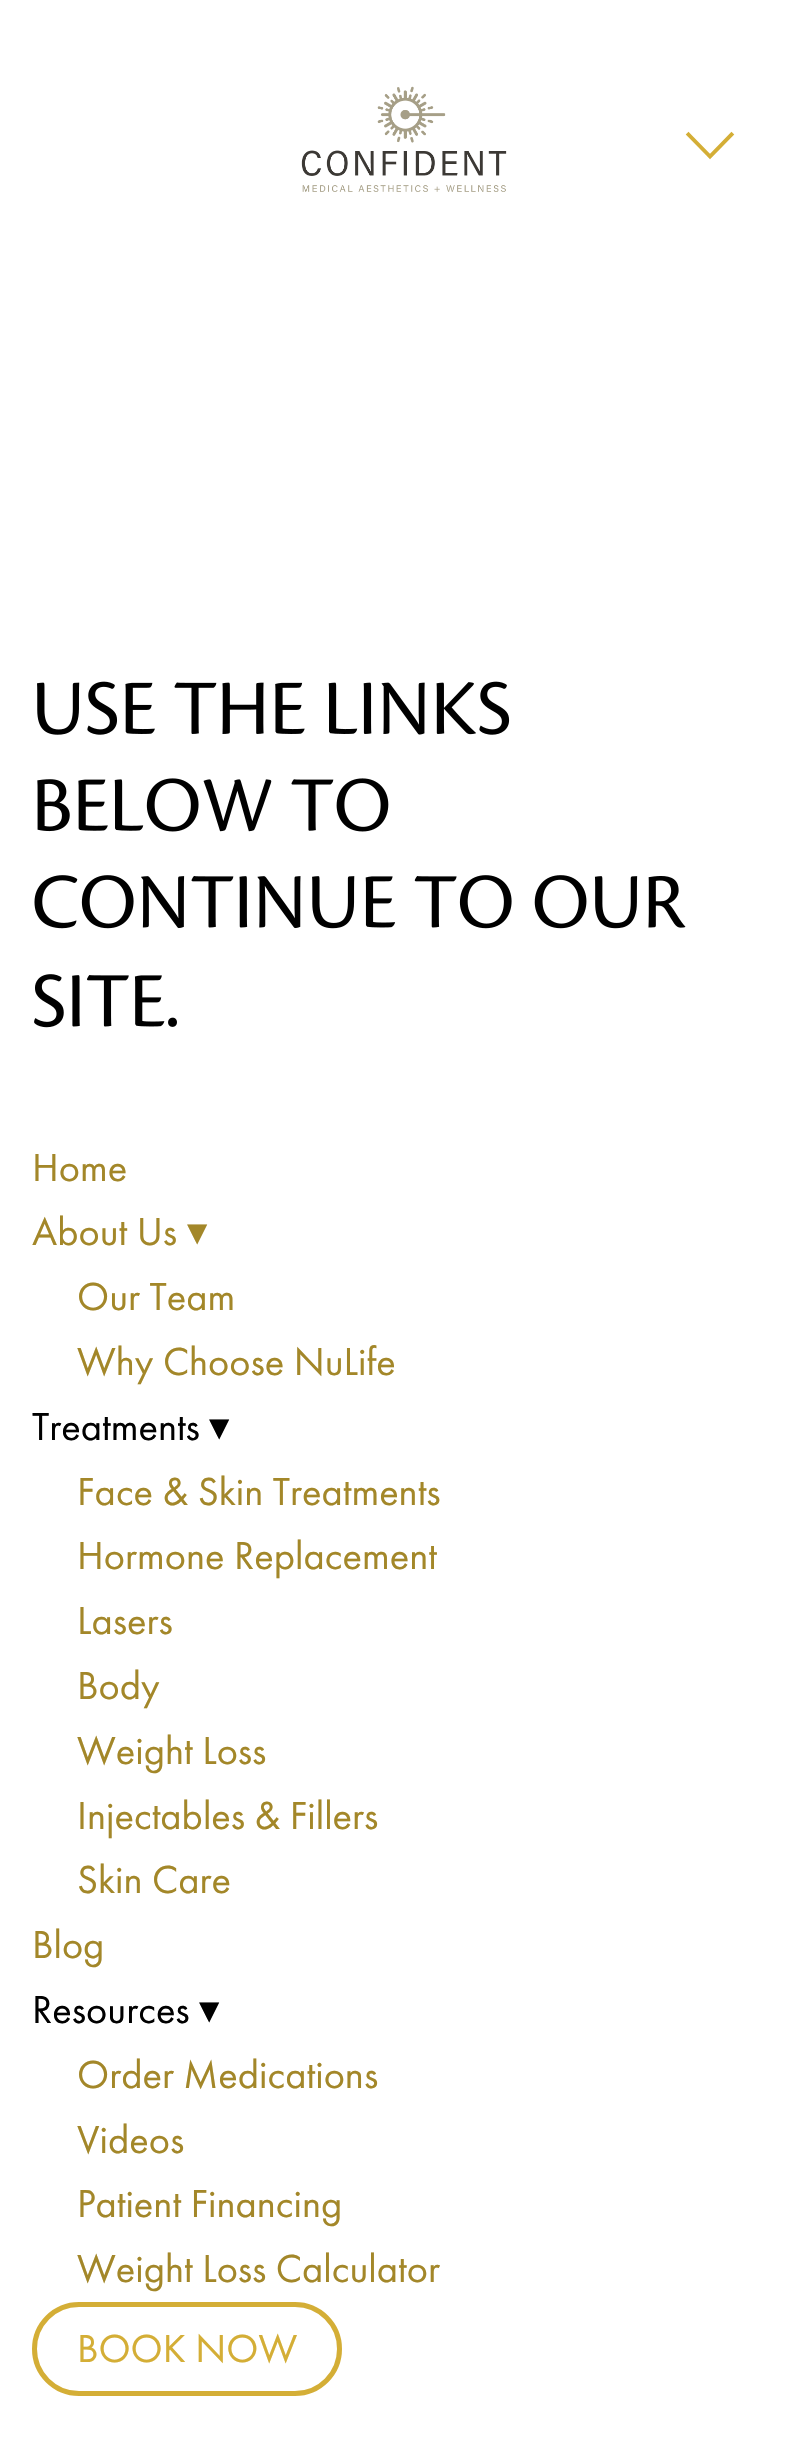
void draw(SkCanvas* canvas) {
  SkPaint paint;
  paint.setAntiAlias(true);
  auto face = [&](const char* family, int weight, float size, bool italic = false) {
    SkFontStyle style(weight, SkFontStyle::kNormal_Width,
      italic ? SkFontStyle::kItalic_Slant : SkFontStyle::kUpright_Slant);
    SkFont result(fontMgr->matchFamilyStyle(family, style), size);
    result.setSubpixel(true);
    return result;
  };
  auto paste = [&](const char* path, float x, float y, float w, float h) {
    auto image = SkImages::DeferredFromEncodedData(SkData::MakeFromFileName(path));
    canvas->drawImageRect(image, SkRect::MakeXYWH(x, y, w, h), SkSamplingOptions());
  };
  auto shape = [&](const char* data, bool evenOdd = false) {
    SkPath result = *SkParsePath::FromSVGString(data);
    if (evenOdd) result.setFillType(SkPathFillType::kEvenOdd);
    return result;
  };
  canvas->clear(0xffffffff);
  paste("img/1.png", 301, 86, 206, 106);
  paint.setStroke(true);
  paint.setStrokeWidth(3.9f);
  paint.setStrokeCap(SkPaint::kSquare_Cap);
  paint.setColor(0xffd4ae36);
  canvas->drawPath(shape("M688.5 134.5L710 156.5M710 156.5L731.5 134.5"), paint);
  paste("img/2.png", 37, 681, 473, 54);
  paste("img/3.png", 37, 778, 352, 54);
  paste("img/4.png", 34, 875, 652, 54);
  paste("img/5.png", 34, 974, 143, 54);
  paint.setStrokeWidth(5);
  paint.setStrokeCap(SkPaint::kButt_Cap);
  canvas->drawRoundRect(SkRect::MakeXYWH(34.5f, 2304.5f, 305, 89), 44.5f, 44.5f, paint);
  auto f0 = face("Futura PT", 400, 40.5f);
  paint.setStroke(false);
  paint.setColor(0xffa38729);
  canvas->drawString("Home", 32, 1181, f0, paint);
  canvas->drawString("About Us", 32, 1245, f0, paint);
  auto f1 = face("DejaVu Sans", 400, 40.5f);
  canvas->drawString("▾", 187, 1245, f1, paint);
  canvas->drawString("Our Team", 77, 1310, f0, paint);
  canvas->drawString("Why Choose NuLife", 77, 1375, f0, paint);
  paint.setColor(0xff000000);
  canvas->drawString("Treatments", 32, 1440, f0, paint);
  canvas->drawString("▾", 209, 1440, f1, paint);
  paint.setColor(0xffa38729);
  {
    const struct { const char* s; float x, y; } items[] = {
      {"Face & Skin Treatments", 77, 1505},
      {"Hormone Replacement", 77, 1569},
      {"Lasers", 77, 1634},
      {"Body", 77, 1699},
      {"Weight Loss", 77, 1764},
      {"Injectables & Fillers", 77, 1829},
      {"Skin Care", 77, 1893},
      {"Blog", 32, 1958},
    };
    for (auto [s, x, y] : items) {
      canvas->drawString(s, x, y, f0, paint);
    }
  }
  paint.setColor(0xff000000);
  canvas->drawString("Resources", 32, 2023, f0, paint);
  canvas->drawString("▾", 199, 2023, f1, paint);
  paint.setColor(0xffa38729);
  {
    const struct { const char* s; float x, y; } items[] = {
      {"Order Medications", 77, 2088},
      {"Videos", 77, 2153},
      {"Patient Financing", 77, 2217},
      {"Weight Loss Calculator", 77, 2282},
    };
    for (auto [s, x, y] : items) {
      canvas->drawString(s, x, y, f0, paint);
    }
  }
  paint.setColor(0xffd4ae36);
  canvas->drawString("BOOK NOW", 77, 2362, f0, paint);
}
